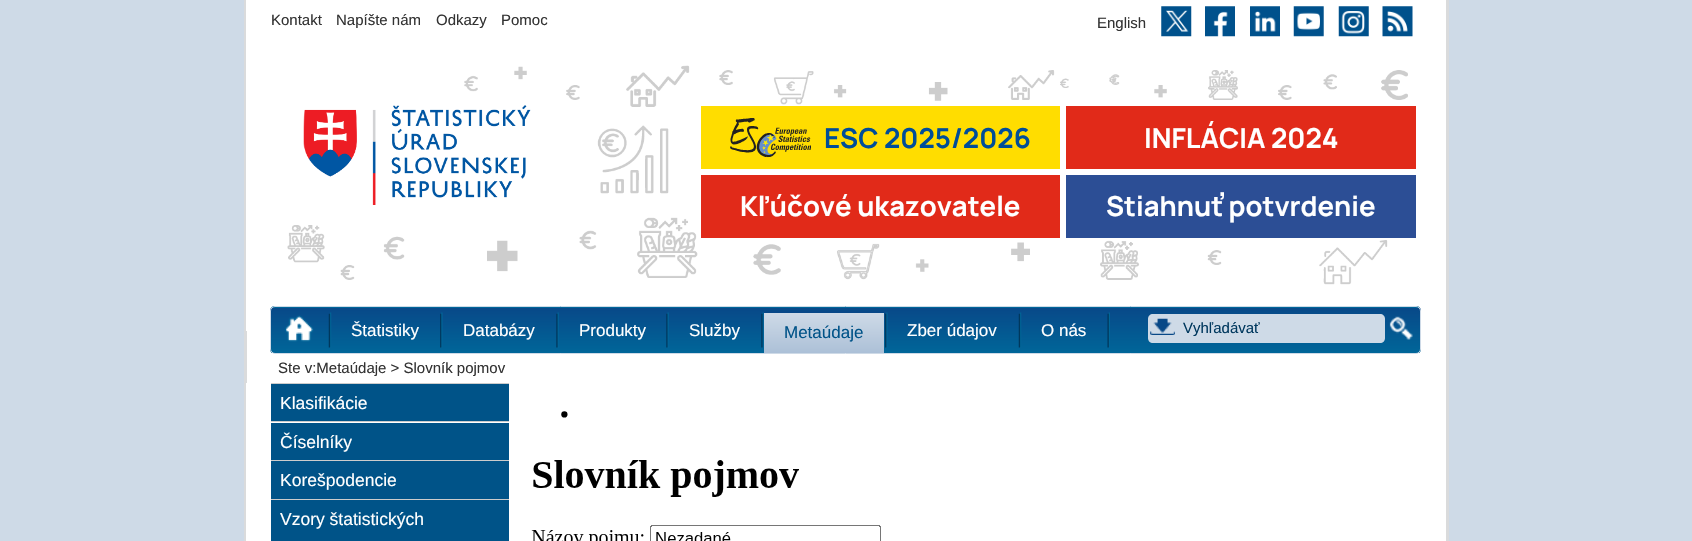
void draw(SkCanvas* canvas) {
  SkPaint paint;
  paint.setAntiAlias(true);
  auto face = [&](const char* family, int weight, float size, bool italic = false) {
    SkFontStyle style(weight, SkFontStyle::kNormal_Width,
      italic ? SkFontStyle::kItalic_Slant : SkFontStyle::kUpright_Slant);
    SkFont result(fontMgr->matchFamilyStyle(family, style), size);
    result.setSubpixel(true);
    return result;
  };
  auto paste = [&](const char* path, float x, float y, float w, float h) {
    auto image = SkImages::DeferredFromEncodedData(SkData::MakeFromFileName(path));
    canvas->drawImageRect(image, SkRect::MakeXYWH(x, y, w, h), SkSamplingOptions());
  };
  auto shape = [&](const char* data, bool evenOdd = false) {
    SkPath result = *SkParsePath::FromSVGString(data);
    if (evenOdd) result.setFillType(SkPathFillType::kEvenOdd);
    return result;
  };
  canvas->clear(0xffcedae7);
  {
    const struct { float x, y, w, h; SkColor color; } items[] = {
      {247, 331, 1199, 52, 0xffffffff},
      {1446, 0, 3, 541, 0xffdadbdc},
      {244, 0, 3, 541, 0xffdadbdc},
      {246, 0, 1200, 331, 0xffffffff},
    };
    for (auto [x, y, w, h, color] : items) {
      paint.setColor(color);
      canvas->drawRect(SkRect::MakeXYWH(x, y, w, h), paint);
    }
  }
  paste("img/1.png", 1161, 6, 31, 31);
  paste("img/2.png", 1205, 6, 30, 31);
  paste("img/3.png", 1250, 6, 30, 31);
  paste("img/4.png", 1293, 6, 31, 31);
  paste("img/5.png", 1338, 6, 31, 31);
  paste("img/6.png", 1382, 6, 31, 31);
  paste("img/7.png", 287, 65, 1121, 220);
  paste("img/8.png", 303, 105, 228, 100);
  paint.setColor(0xffffdd00);
  canvas->drawRect(SkRect::MakeXYWH(701, 106, 359, 63), paint);
  paste("img/9.png", 730, 118, 81, 40);
  {
    const struct { float x, y, w, h; SkColor color; } items[] = {
      {1066, 106, 350, 63, 0xffe12a19},
      {701, 175, 359, 63, 0xffe12a19},
      {1066, 175, 350, 63, 0xff2c4e95},
    };
    for (auto [x, y, w, h, color] : items) {
      paint.setColor(color);
      canvas->drawRect(SkRect::MakeXYWH(x, y, w, h), paint);
    }
  }
  canvas->save();
  canvas->clipPath(shape("M275 306H1416C1419 306 1421 308 1421 311V349C1421 352 1419 354 1416 354H275C272 354 270 352 270 349V311C270 308 272 306 275 306Z"), true);
  {
    const SkColor colors[] = {0xff084888, 0xff006699};
    const float stops[] = {0, 1};
    const SkPoint ends[] = {{846, 262}, {846, 308}};
    paint.setShader(SkGradientShader::MakeLinear(ends, colors, stops, 2, SkTileMode::kClamp));
    paint.setAlpha(255);
  }
  canvas->drawRect(SkRect::MakeXYWH(270, 306, 1151, 2), paint);
  {
    const SkColor colors[] = {0xff084888, 0xff006699};
    const float stops[] = {0, 1};
    const SkPoint ends[] = {{846, 307}, {846, 353}};
    paint.setShader(SkGradientShader::MakeLinear(ends, colors, stops, 2, SkTileMode::kClamp));
    paint.setAlpha(255);
  }
  canvas->drawRect(SkRect::MakeXYWH(270, 308, 1151, 45), paint);
  canvas->restore();
  paint.setStroke(true);
  paint.setStrokeWidth(1);
  paint.setShader(nullptr);
  paint.setColor(0xffcedae7);
  canvas->drawRoundRect(SkRect::MakeXYWH(270.5f, 306.5f, 1150, 47), 4.5f, 4.5f, paint);
  paste("img/10.png", 285, 315, 29, 27);
  paste("img/11.png", 328, 312, 4, 36);
  paste("img/12.png", 440, 312, 3, 36);
  paste("img/13.png", 556, 312, 3, 36);
  paste("img/14.png", 666, 312, 3, 36);
  paste("img/13.png", 761, 312, 3, 36);
  paint.setStroke(false);
  {
    const SkColor colors[] = {0xffcedae7, 0xffacc0d7};
    const float stops[] = {0, 1};
    const SkPoint ends[] = {{824, 313}, {824, 353}};
    paint.setShader(SkGradientShader::MakeLinear(ends, colors, stops, 2, SkTileMode::kClamp));
    paint.setAlpha(255);
  }
  canvas->drawRect(SkRect::MakeXYWH(764, 313, 120, 40), paint);
  paint.setShader(nullptr);
  paint.setColor(0xff084888);
  canvas->drawRect(SkRect::MakeXYWH(764, 311, 120, 2), paint);
  paste("img/12.png", 885, 312, 3, 36);
  paste("img/11.png", 1018, 312, 4, 36);
  paste("img/15.png", 1107, 312, 3, 36);
  paint.setColor(0xffcedae7);
  canvas->drawPath(shape("M1153 314H1180V343H1153C1150 343 1148 341 1148 338V319C1148 316 1150 314 1153 314Z"), paint);
  paste("img/16.png", 1150, 318, 25, 17);
  canvas->drawPath(shape("M1180 314H1380C1383 314 1385 316 1385 319V338C1385 341 1383 343 1380 343H1180Z"), paint);
  paste("img/17.png", 1389, 316, 24, 24);
  {
    const struct { float x, y, w, h; SkColor color; } items[] = {
      {246, 383, 1200, 158, 0xffffffff},
      {271, 383, 238, 1, 0xffcccccc},
      {271, 384, 238, 37, 0xff005388},
      {271, 421, 238, 1, 0xffcccccc},
      {271, 423, 238, 37, 0xff005388},
      {271, 460, 238, 1, 0xffcccccc},
      {271, 461, 238, 38, 0xff005388},
      {271, 499, 238, 1, 0xffcccccc},
      {271, 500, 238, 41, 0xff005388},
    };
    for (auto [x, y, w, h, color] : items) {
      paint.setColor(color);
      canvas->drawRect(SkRect::MakeXYWH(x, y, w, h), paint);
    }
  }
  paste("img/18.png", 531, 411, 350, 130);
  auto f0 = face("Liberation Sans", 400, 15);
  paint.setColor(0xff333333);
  {
    const struct { const char* s; float x, y; } items[] = {
      {"Kontakt", 271, 25},
      {"Napíšte nám", 336, 25},
      {"Odkazy", 436, 25},
      {"Pomoc", 501, 25},
      {"English", 1097, 28},
    };
    for (auto [s, x, y] : items) {
      canvas->drawString(s, x, y, f0, paint);
    }
  }
  auto f1 = face("Manrope", 200, 27.5f);
  paint.setColor(0xff004d99);
  canvas->drawString("ESC 2025/2026", 824, 148, f1, paint);
  paint.setColor(0xffffffff);
  {
    const struct { const char* s; float x, y; } items[] = {
      {"INFLÁCIA 2024", 1144, 148},
      {"Kľúčové ukazovatele", 740, 216},
      {"Stiahnuť potvrdenie", 1106, 216},
    };
    for (auto [s, x, y] : items) {
      canvas->drawString(s, x, y, f1, paint);
    }
  }
  auto f2 = face("Liberation Sans", 400, 17);
  {
    const struct { const char* s; float x, y; } items[] = {
      {"Štatistiky", 351, 336},
      {"Databázy", 463, 336},
      {"Produkty", 579, 336},
      {"Služby", 689, 336},
    };
    for (auto [s, x, y] : items) {
      canvas->drawString(s, x, y, f2, paint);
    }
  }
  paint.setColor(0xff005388);
  canvas->drawString("Metaúdaje", 784, 338, f2, paint);
  paint.setColor(0xffffffff);
  canvas->drawString("Zber údajov", 907, 336, f2, paint);
  canvas->drawString("O nás", 1041, 336, f2, paint);
  paint.setColor(0xff00385e);
  canvas->drawString("Vyhľadávať", 1183, 333, f0, paint);
  paint.setColor(0xff333333);
  canvas->drawString("Ste v:Metaúdaje > Slovník pojmov", 278, 373, f0, paint);
  auto f3 = face("Liberation Sans", 400, 17.5f);
  paint.setColor(0xffffffff);
  {
    const struct { const char* s; float x, y; } items[] = {
      {"Klasifikácie", 280, 409},
      {"Číselníky", 280, 448},
      {"Korešpodencie", 280, 486},
      {"Vzory štatistických", 280, 525},
    };
    for (auto [s, x, y] : items) {
      canvas->drawString(s, x, y, f3, paint);
    }
  }
}
